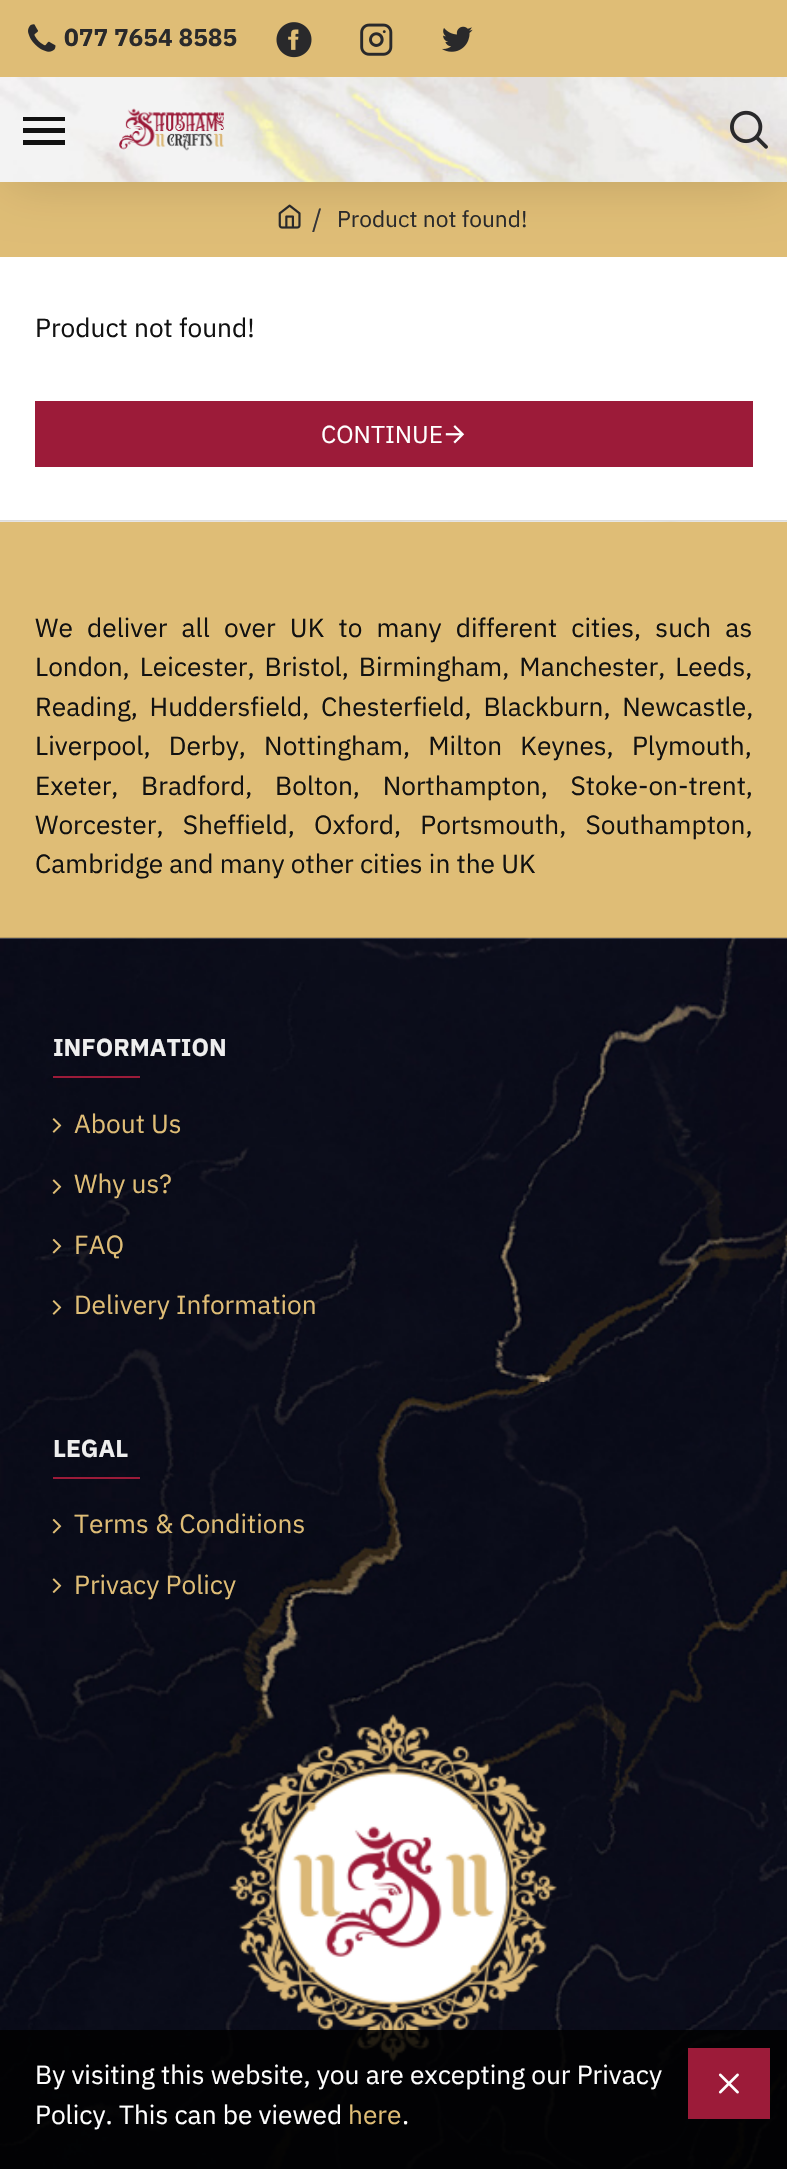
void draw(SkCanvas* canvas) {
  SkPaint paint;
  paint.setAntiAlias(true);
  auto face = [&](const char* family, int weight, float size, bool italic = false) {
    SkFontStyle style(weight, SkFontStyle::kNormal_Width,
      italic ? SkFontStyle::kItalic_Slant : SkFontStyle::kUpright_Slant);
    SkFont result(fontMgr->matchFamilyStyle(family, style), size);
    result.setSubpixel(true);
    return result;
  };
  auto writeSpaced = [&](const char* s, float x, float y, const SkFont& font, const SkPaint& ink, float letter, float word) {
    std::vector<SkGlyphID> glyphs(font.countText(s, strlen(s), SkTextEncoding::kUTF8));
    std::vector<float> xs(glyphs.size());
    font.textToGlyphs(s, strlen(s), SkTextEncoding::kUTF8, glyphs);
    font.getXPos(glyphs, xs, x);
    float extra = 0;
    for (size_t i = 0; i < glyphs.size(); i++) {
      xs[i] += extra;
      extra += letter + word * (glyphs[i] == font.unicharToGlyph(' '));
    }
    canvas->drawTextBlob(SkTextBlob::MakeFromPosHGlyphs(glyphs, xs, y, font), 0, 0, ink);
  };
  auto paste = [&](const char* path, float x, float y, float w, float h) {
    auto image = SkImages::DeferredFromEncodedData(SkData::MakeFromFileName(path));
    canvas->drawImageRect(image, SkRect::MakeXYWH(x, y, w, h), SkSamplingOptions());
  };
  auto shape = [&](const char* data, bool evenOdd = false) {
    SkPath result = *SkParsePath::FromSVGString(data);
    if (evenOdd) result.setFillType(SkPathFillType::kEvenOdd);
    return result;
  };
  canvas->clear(0xffffffff);
  paint.setColor(0xffdfbd76);
  canvas->drawRect(SkRect::MakeXYWH(0, 182, 787, 75), paint);
  paste("img/8.png", 278, 204, 23, 25);
  paint.setColor(0x26000000);
  paint.setMaskFilter(SkMaskFilter::MakeBlur(kNormal_SkBlurStyle, 26));
  canvas->drawRect(SkRect::MakeXYWH(9, 95, 770, 87), paint);
  paint.setMaskFilter(nullptr);
  paste("img/1.png", 0, 77, 787, 105);
  paste("img/2.png", 119, 108, 105, 43);
  paint.setColor(0xff111111);
  canvas->drawPath(shape("M23 117H65V121H23ZM23 133V128H65V133ZM23 145V140H65V145Z"), paint);
  paste("img/3.png", 730, 110, 38, 39);
  paint.setColor(0xffdfbd76);
  canvas->drawRect(SkRect::MakeXYWH(0, 0, 787, 77), paint);
  paste("img/4.png", 28, 24, 28, 28);
  paste("img/5.png", 276, 22, 36, 36);
  paste("img/6.png", 360, 23, 33, 33);
  paste("img/7.png", 442, 26, 31, 26);
  paint.setColor(0xff9c1b39);
  canvas->drawRect(SkRect::MakeXYWH(35, 401, 718, 66), paint);
  paste("img/9.png", 445, 425, 20, 19);
  paint.setColor(0xffdddddd);
  canvas->drawRect(SkRect::MakeXYWH(0, 520, 787, 2), paint);
  paste("img/10.png", 0, 521, 787, 418);
  paint.setColor(0xffdfbd76);
  canvas->drawRect(SkRect::MakeXYWH(0, 522, 787, 416), paint);
  paste("img/11.png", 0, 937, 787, 1232);
  paint.setColor(0xff9c1b39);
  canvas->drawRect(SkRect::MakeXYWH(53, 1076, 87, 2), paint);
  paste("img/12.png", 52, 1118, 10, 15);
  paste("img/13.png", 52, 1179, 10, 15);
  paste("img/14.png", 52, 1238, 10, 16);
  paste("img/15.png", 52, 1300, 10, 15);
  canvas->drawRect(SkRect::MakeXYWH(53, 1477, 87, 2), paint);
  paste("img/16.png", 52, 1518, 10, 16);
  paste("img/17.png", 52, 1578, 10, 15);
  paste("img/18.png", 229, 1714, 328, 348);
  paint.setColor(0xd9000000);
  canvas->drawRect(SkRect::MakeXYWH(0, 2030, 787, 139), paint);
  paint.setColor(0xff9c1b39);
  canvas->drawRect(SkRect::MakeXYWH(688, 2048, 82, 71), paint);
  paste("img/19.png", 718, 2073, 21, 21);
  auto f0 = face("IBM Plex Sans", 700, 24.5f);
  paint.setColor(0xff29292b);
  canvas->drawString("077 7654 8585", 64, 46, f0, paint);
  auto f1 = face("IBM Plex Sans", 400, 26.25f);
  paint.setColor(0xff343438);
  canvas->drawString("/", 312, 228, f1, paint);
  auto f2 = face("IBM Plex Sans", 400, 22.75f);
  paint.setColor(0xff29292b);
  canvas->drawString("Product not found!", 337, 227, f2, paint);
  paint.setColor(0xff111111);
  canvas->drawString("Product not found!", 35, 337, f1, paint);
  auto f3 = face("IBM Plex Sans", 400, 24.5f);
  paint.setColor(0xffffffff);
  canvas->drawString("CONTINUE", 321, 443, f3, paint);
  paint.setColor(0xff111111);
  writeSpaced("We deliver all over UK to many different cities, such as", 35, 637, f1, paint, 0, 8);
  writeSpaced("London, Leicester, Bristol, Birmingham, Manchester, Leeds,", 35, 676, f1, paint, 0, 3.75f);
  writeSpaced("Reading, Huddersfield, Chesterfield, Blackburn, Newcastle,", 35, 716, f1, paint, 0, 5.5f);
  writeSpaced("Liverpool, Derby, Nottingham, Milton Keynes, Plymouth,", 35, 755, f1, paint, 0, 12);
  writeSpaced("Exeter, Bradford, Bolton, Northampton, Stoke-on-trent,", 35, 795, f1, paint, 0, 16.5f);
  writeSpaced("Worcester, Sheffield, Oxford, Portsmouth, Southampton,", 35, 834, f1, paint, 0, 13);
  canvas->drawString("Cambridge and many other cities in the UK", 35, 873, f1, paint);
  paint.setColor(0xffeeeeee);
  canvas->drawString("INFORMATION", 53, 1056, f0, paint);
  paint.setColor(0xffdfbd76);
  {
    const struct { const char* s; float x, y; } items[] = {
      {"About Us", 74, 1133},
      {"Why us?", 74, 1193},
      {"FAQ", 74, 1254},
      {"Delivery Information", 74, 1314},
    };
    for (auto [s, x, y] : items) {
      canvas->drawString(s, x, y, f1, paint);
    }
  }
  paint.setColor(0xffeeeeee);
  canvas->drawString("LEGAL", 53, 1457, f0, paint);
  paint.setColor(0xffdfbd76);
  canvas->drawString("Terms & Conditions", 74, 1533, f1, paint);
  canvas->drawString("Privacy Policy", 74, 1594, f1, paint);
  paint.setColor(0xffffffff);
  canvas->drawString("By visiting this website, you are excepting our Privacy", 35, 2084, f1, paint);
  canvas->drawString("Policy. This can be viewed", 35, 2124, f1, paint);
  paint.setColor(0xffdfbd76);
  canvas->drawString("here", 348, 2124, f1, paint);
  paint.setColor(0xffffffff);
  canvas->drawString(".", 402, 2124, f1, paint);
}
